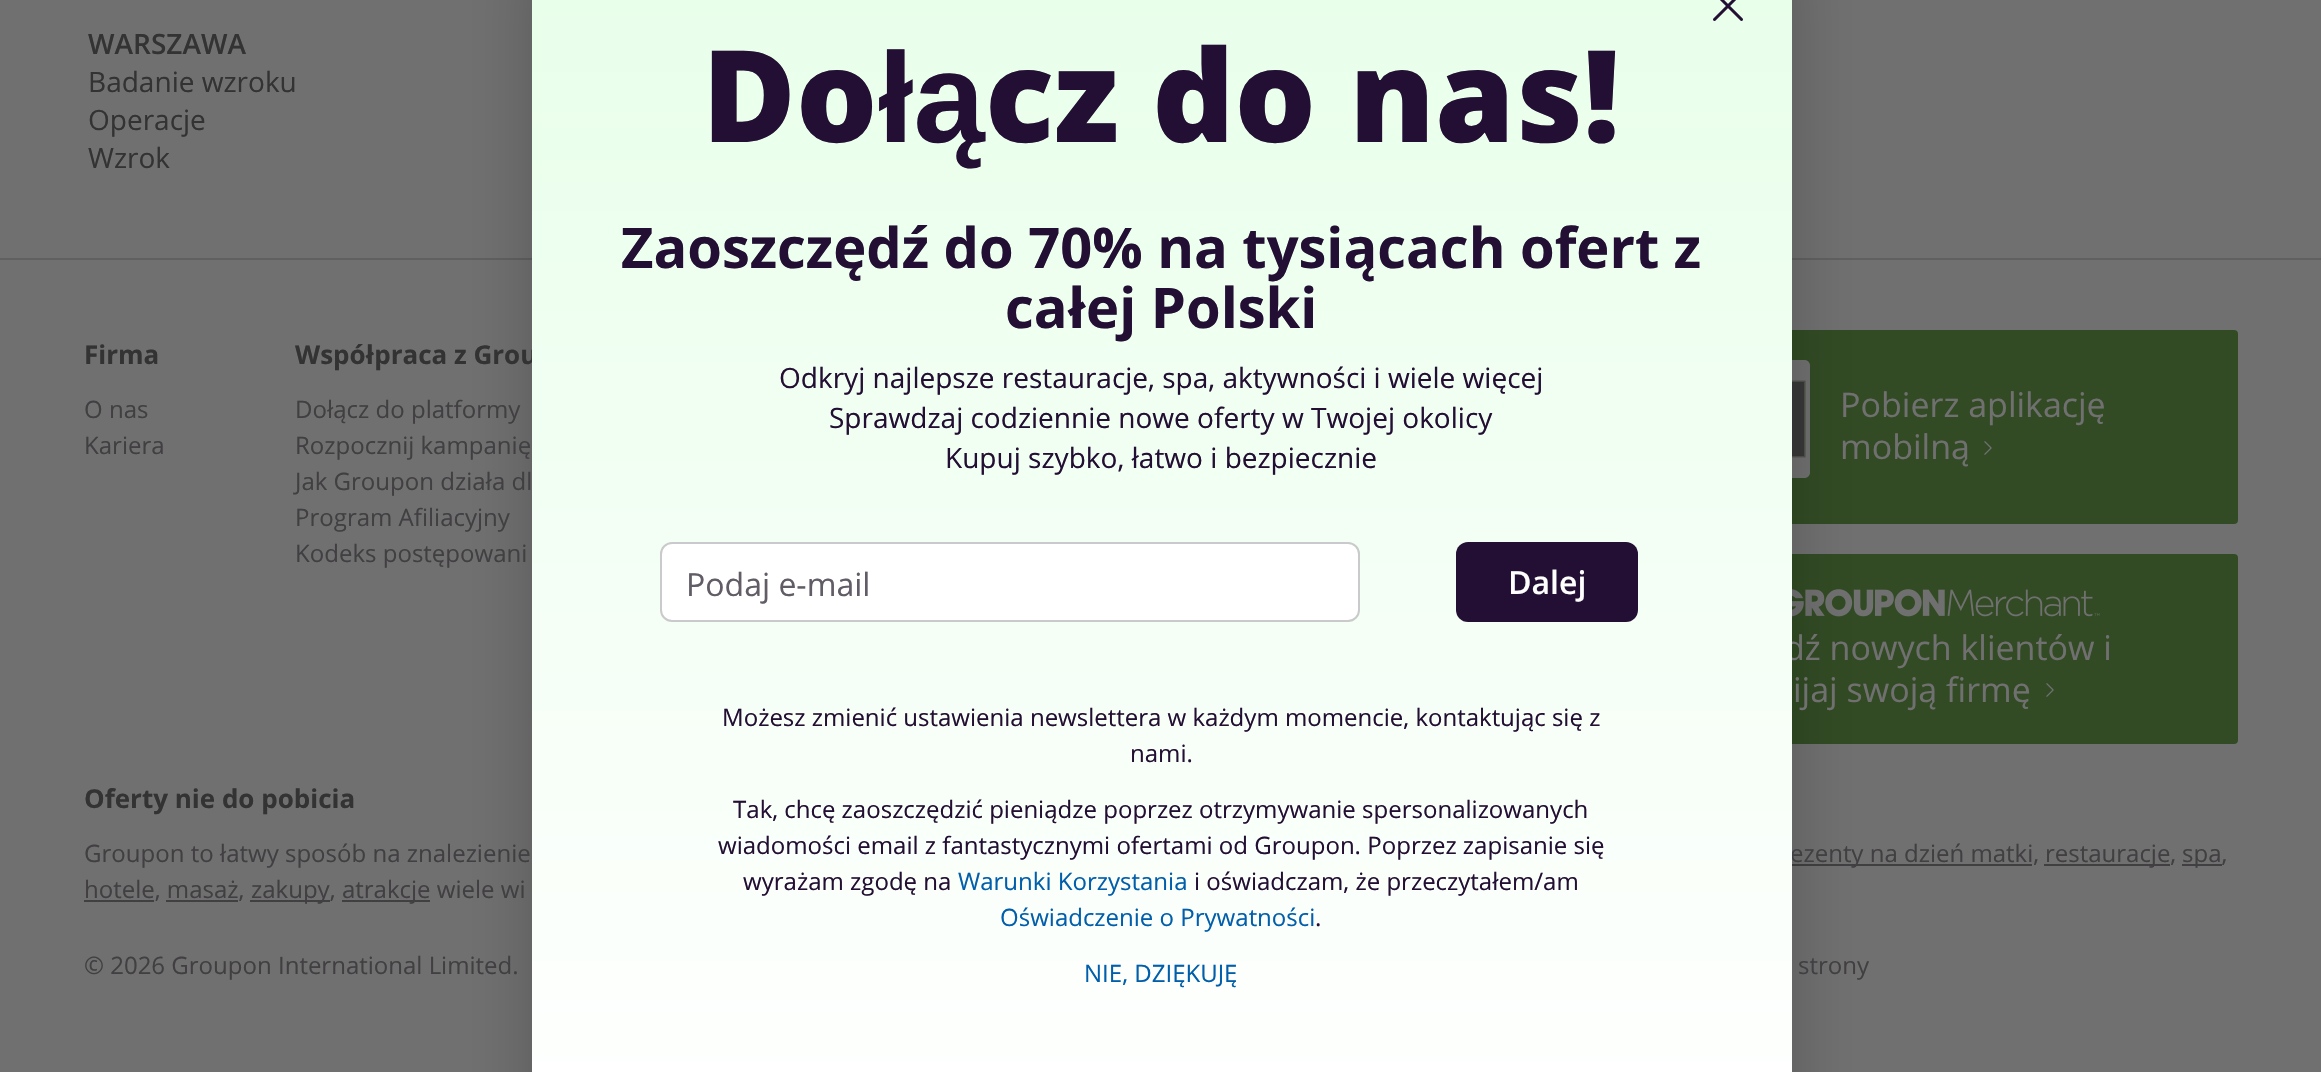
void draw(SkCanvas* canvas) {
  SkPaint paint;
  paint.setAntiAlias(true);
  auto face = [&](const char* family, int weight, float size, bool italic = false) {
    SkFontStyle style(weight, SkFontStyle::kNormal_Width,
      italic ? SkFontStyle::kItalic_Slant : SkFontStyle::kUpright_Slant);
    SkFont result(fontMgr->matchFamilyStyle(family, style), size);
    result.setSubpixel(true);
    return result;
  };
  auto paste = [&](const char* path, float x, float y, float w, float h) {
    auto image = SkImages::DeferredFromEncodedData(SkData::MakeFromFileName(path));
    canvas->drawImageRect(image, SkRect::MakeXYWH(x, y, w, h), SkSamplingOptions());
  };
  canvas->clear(0xff707070);
  paint.setColor(0xff606061);
  canvas->drawRect(SkRect::MakeXYWH(0, 258, 2321, 2), paint);
  paint.setColor(0xff324b24);
  canvas->drawRoundRect(SkRect::MakeXYWH(1686, 330, 552, 194), 4, 4, paint);
  paste("img/2.png", 1792, 360, 18, 118);
  canvas->drawRoundRect(SkRect::MakeXYWH(1686, 554, 552, 190), 4, 4, paint);
  paste("img/4.png", 1792, 589, 308, 28);
  paint.setColor(0xff413f42);
  canvas->drawRect(SkRect::MakeXYWH(1792, 864, 240, 2), paint);
  paint.setColor(0x33000000);
  paint.setMaskFilter(SkMaskFilter::MakeBlur(kNormal_SkBlurStyle, 32));
  canvas->drawRoundRect(SkRect::MakeXYWH(532, -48, 1260, 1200), 12, 12, paint);
  paint.setMaskFilter(nullptr);
  paste("img/3.png", 1984, 441, 8, 14);
  paste("img/3.png", 2046, 683, 8, 14);
  {
    const struct { float x, y, w, h; SkColor color; } items[] = {
      {2044, 864, 126, 2, 0xff413f42},
      {2182, 864, 40, 2, 0xff413f42},
      {84, 900, 70, 2, 0xff413f42},
      {250, 900, 80, 2, 0xff413f42},
      {342, 900, 88, 2, 0xff413f42},
      {166, 900, 72, 2, 0xff413f42},
    };
    for (auto [x, y, w, h, color] : items) {
      paint.setColor(color);
      canvas->drawRect(SkRect::MakeXYWH(x, y, w, h), paint);
    }
  }
  auto f0 = face("Open Sans", 600, 28);
  paint.setColor(0xff333333);
  canvas->drawString("WARSZAWA", 88, 54, f0, paint);
  auto f1 = face("Open Sans", 400, 28);
  {
    const struct { const char* s; float x, y; } items[] = {
      {"Badanie wzroku", 88, 92},
      {"Operacje", 88, 130},
      {"Wzrok", 88, 168},
    };
    for (auto [s, x, y] : items) {
      canvas->drawString(s, x, y, f1, paint);
    }
  }
  auto f2 = face("Open Sans", 700, 26);
  canvas->drawString("Firma", 84, 364, f2, paint);
  auto f3 = face("Open Sans", 400, 24);
  paint.setColor(0xff413f42);
  canvas->drawString("O nas", 84, 418, f3, paint);
  canvas->drawString("Kariera", 84, 454, f3, paint);
  paint.setColor(0xff333333);
  canvas->drawString("Współpraca z Grou", 295, 364, f2, paint);
  paint.setColor(0xff413f42);
  {
    const struct { const char* s; float x, y; } items[] = {
      {"Dołącz do platformy", 295, 418},
      {"Rozpocznij kampanię", 295, 454},
      {"Jak Groupon działa dl", 295, 490},
      {"Program Afiliacyjny", 295, 526},
      {"Kodeks postępowani", 295, 562},
    };
    for (auto [s, x, y] : items) {
      canvas->drawString(s, x, y, f3, paint);
    }
  }
  auto f4 = face("Open Sans", 400, 34);
  paint.setColor(0xff707070);
  {
    const struct { const char* s; float x, y; } items[] = {
      {"Pobierz aplikację", 1840, 417},
      {"mobilną", 1840, 459},
      {"dź nowych klientów i", 1784, 660},
      {"ijaj swoją firmę", 1793, 702},
    };
    for (auto [s, x, y] : items) {
      canvas->drawString(s, x, y, f4, paint);
    }
  }
  paint.setColor(0xff333333);
  canvas->drawString("Oferty nie do pobicia", 84, 808, f2, paint);
  paint.setColor(0xff413f42);
  canvas->drawString("Groupon to łatwy sposób na znalezienie", 84, 862, f3, paint);
  canvas->drawString("ezenty na dzień matki,", 1790, 862, f3, paint);
  {
    const SkColor colors[] = {0xffe7ffe9, 0xffffffff, 0xffffffff};
    const float stops[] = {0, 1, 1};
    const SkPoint ends[] = {{1162, -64}, {1162, 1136}};
    paint.setShader(SkGradientShader::MakeLinear(ends, colors, stops, 3, SkTileMode::kClamp));
    paint.setAlpha(255);
  }
  canvas->drawRect(SkRect::MakeXYWH(532, 0, 1260, 1072), paint);
  paste("img/1.png", 1713, 0, 30, 21);
  paint.setShader(nullptr);
  paint.setColor(0xff230f33);
  canvas->drawRoundRect(SkRect::MakeXYWH(1456, 542, 182, 80), 12, 12, paint);
  auto f5 = face("Open Sans", 600, 32);
  paint.setColor(0xffffffff);
  canvas->drawString("Dalej", 1508, 594, f5, paint);
  paint.setColor(0xff005eab);
  canvas->drawString("NIE, DZIĘKUJĘ", 1084, 982, f3, paint);
  paint.setColor(0xff230f33);
  canvas->drawString(".", 1315, 926, f3, paint);
  paint.setColor(0xff005eab);
  canvas->drawString("Oświadczenie o Prywatności", 1000, 926, f3, paint);
  paint.setColor(0xff230f33);
  canvas->drawString("i oświadczam, że przeczytałem/am", 1194, 890, f3, paint);
  paint.setColor(0xff005eab);
  canvas->drawString("Warunki Korzystania", 958, 890, f3, paint);
  paint.setColor(0xff230f33);
  {
    const struct { const char* s; float x, y; } items[] = {
      {"wyrażam zgodę na", 743, 890},
      {"wiadomości email z fantastycznymi ofertami od Groupon. Poprzez zapisanie się", 718, 854},
      {"Tak, chcę zaoszczędzić pieniądze poprzez otrzymywanie spersonalizowanych", 733, 818},
      {"nami.", 1130, 762},
      {"Możesz zmienić ustawienia newslettera w każdym momencie, kontaktując się z", 722, 726},
    };
    for (auto [s, x, y] : items) {
      canvas->drawString(s, x, y, f3, paint);
    }
  }
  paint.setColor(0xffffffff);
  canvas->drawRoundRect(SkRect::MakeXYWH(661, 543, 698, 78), 11, 11, paint);
  paint.setStroke(true);
  paint.setStrokeWidth(2);
  paint.setColor(0xffcacacc);
  canvas->drawRoundRect(SkRect::MakeXYWH(661, 543, 698, 78), 11, 11, paint);
  auto f6 = face("Open Sans", 400, 32);
  paint.setStroke(false);
  paint.setColor(0xff615c66);
  canvas->drawString("Podaj e-mail", 686, 596, f6, paint);
  paint.setColor(0xff230f33);
  {
    const struct { const char* s; float x, y; } items[] = {
      {"Kupuj szybko, łatwo i bezpiecznie", 945, 468},
      {"Sprawdzaj codziennie nowe oferty w Twojej okolicy", 829, 428},
      {"Odkryj najlepsze restauracje, spa, aktywności i wiele więcej", 779, 388},
    };
    for (auto [s, x, y] : items) {
      canvas->drawString(s, x, y, f1, paint);
    }
  }
  auto f7 = face("Open Sans", 700, 56);
  canvas->drawString("całej Polski", 1005, 328, f7, paint);
  canvas->drawString("Zaoszczędź do 70% na tysiącach ofert z", 621, 268, f7, paint);
  auto f8 = face("Open Sans", 800, 128);
  canvas->drawString("cz do nas!", 985, 142, f8, paint);
  auto f9 = face("Liberation Sans", 700, 128);
  canvas->drawString("łą", 878, 142, f9, paint);
  canvas->drawString("Do", 702, 142, f8, paint);
  paint.setColor(0xff413f42);
  {
    const struct { const char* s; float x, y; } items[] = {
      {"restauracje,", 2045, 862},
      {"spa,", 2182, 862},
      {"hotele, masaż,", 84, 898},
      {"zakupy,", 251, 898},
      {"atrakcje wiele wi", 342, 898},
      {"© 2026 Groupon International Limited.", 84, 974},
      {"strony", 1798, 974},
    };
    for (auto [s, x, y] : items) {
      canvas->drawString(s, x, y, f3, paint);
    }
  }
}
